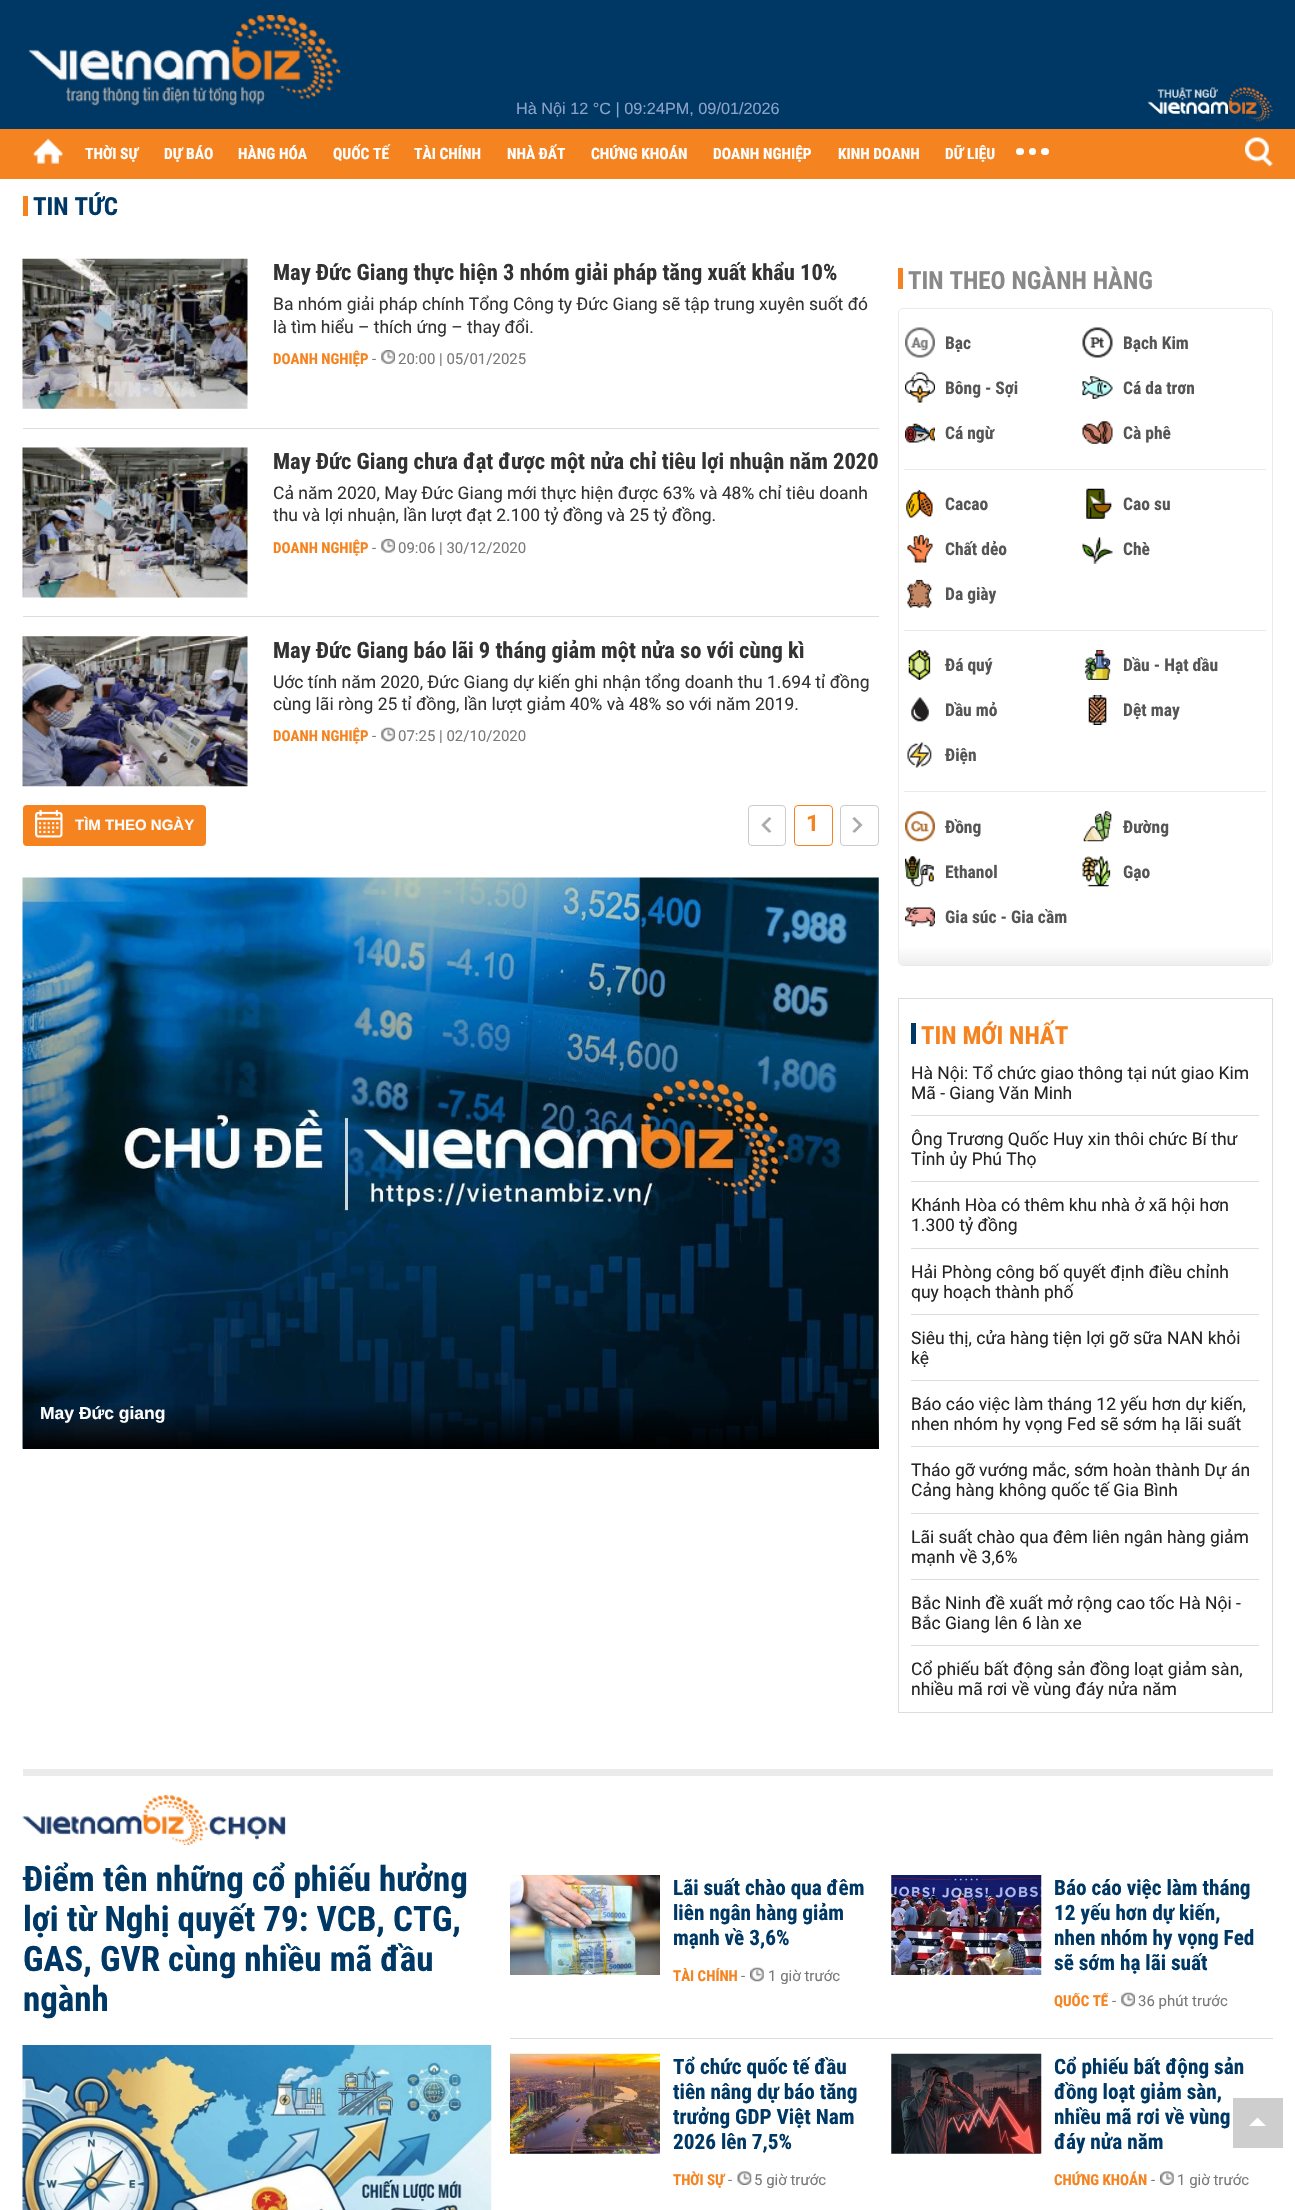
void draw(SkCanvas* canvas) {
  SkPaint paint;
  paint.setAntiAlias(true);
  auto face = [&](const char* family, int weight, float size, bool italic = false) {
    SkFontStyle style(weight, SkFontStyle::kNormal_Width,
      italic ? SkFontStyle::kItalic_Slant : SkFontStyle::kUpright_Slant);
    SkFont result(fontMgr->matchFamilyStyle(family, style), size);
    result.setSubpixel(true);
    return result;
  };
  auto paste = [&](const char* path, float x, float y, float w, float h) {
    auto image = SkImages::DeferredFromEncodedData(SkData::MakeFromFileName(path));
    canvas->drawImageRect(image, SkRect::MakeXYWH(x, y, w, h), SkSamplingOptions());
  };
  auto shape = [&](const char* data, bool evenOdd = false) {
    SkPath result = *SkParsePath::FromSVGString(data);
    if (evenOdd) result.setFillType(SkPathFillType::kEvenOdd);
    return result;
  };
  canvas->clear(0xffffffff);
  paint.setColor(0xff003865);
  canvas->drawRect(SkRect::MakeXYWH(0, 0, 1295, 129), paint);
  paste("img/1.png", 28, 15, 313, 91);
  paste("img/2.png", 1147, 87, 126, 35);
  paint.setColor(0xfff48320);
  canvas->drawRect(SkRect::MakeXYWH(0, 129, 1295, 50), paint);
  paste("img/3.png", 33, 138, 30, 26);
  paint.setColor(0xffffffff);
  canvas->drawRoundRect(SkRect::MakeXYWH(1016, 148, 8, 7), 3.5f, 3.5f, paint);
  canvas->drawCircle(1032.5f, 151.5f, 3.5f, paint);
  canvas->drawRoundRect(SkRect::MakeXYWH(1041, 148, 8, 7), 3.5f, 3.5f, paint);
  paste("img/4.png", 1245, 137, 28, 30);
  paint.setColor(0xfff48320);
  canvas->drawRect(SkRect::MakeXYWH(23, 196, 5, 20), paint);
  paint.setColor(0xffdddddd);
  canvas->drawRect(SkRect::MakeXYWH(23, 428, 856, 1), paint);
  paste("img/5.png", 22, 258, 226, 151);
  paste("img/6.png", 381, 350, 14, 14);
  canvas->drawRect(SkRect::MakeXYWH(23, 616, 856, 1), paint);
  paste("img/7.png", 22, 447, 226, 151);
  paste("img/8.png", 381, 538, 14, 15);
  paste("img/9.png", 22, 636, 226, 151);
  paste("img/10.png", 381, 727, 14, 15);
  paint.setColor(0xfff48320);
  canvas->drawRoundRect(SkRect::MakeXYWH(23, 805, 183, 41), 4, 4, paint);
  paste("img/11.png", 35, 810, 28, 28);
  paint.setStroke(true);
  paint.setStrokeWidth(1);
  paint.setColor(0xffcccccc);
  canvas->drawRoundRect(SkRect::MakeXYWH(748.5f, 805.5f, 37, 40), 3.5f, 3.5f, paint);
  paste("img/12.png", 761, 817, 11, 16);
  paint.setColor(0xfff48320);
  canvas->drawRoundRect(SkRect::MakeXYWH(794.5f, 805.5f, 38, 40), 3.5f, 3.5f, paint);
  paint.setColor(0xffcccccc);
  canvas->drawRoundRect(SkRect::MakeXYWH(840.5f, 805.5f, 38, 40), 3.5f, 3.5f, paint);
  paste("img/13.png", 852, 817, 11, 16);
  paste("img/14.png", 22, 877, 857, 572);
  paint.setStroke(false);
  {
    const SkColor colors[] = {0xff000000, 0x00000000};
    const float stops[] = {0, 1};
    const SkPoint ends[] = {{451, 1449}, {451, 1403}};
    paint.setShader(SkGradientShader::MakeLinear(ends, colors, stops, 2, SkTileMode::kClamp));
    paint.setAlpha(255);
  }
  canvas->drawRect(SkRect::MakeXYWH(23, 1405, 856, 44), paint);
  paint.setShader(nullptr);
  paint.setColor(0xfff48320);
  canvas->drawRect(SkRect::MakeXYWH(898, 268, 5, 21), paint);
  paint.setStroke(true);
  paint.setColor(0xffeaeaea);
  canvas->drawRoundRect(SkRect::MakeXYWH(898.5f, 308.5f, 374, 657), 4.5f, 4.5f, paint);
  paste("img/15.png", 905, 327, 30, 31);
  paste("img/16.png", 1082, 327, 31, 31);
  paste("img/17.png", 905, 372, 30, 31);
  paste("img/18.png", 1082, 376, 31, 23);
  paste("img/19.png", 905, 423, 30, 20);
  paste("img/20.png", 1082, 421, 31, 23);
  paint.setStroke(false);
  canvas->drawRect(SkRect::MakeXYWH(904, 469, 362, 1), paint);
  paste("img/21.png", 906, 489, 27, 29);
  paste("img/22.png", 1086, 488, 26, 31);
  paste("img/23.png", 907, 534, 26, 29);
  paste("img/24.png", 1082, 537, 31, 27);
  paste("img/25.png", 907, 579, 25, 29);
  canvas->drawRect(SkRect::MakeXYWH(904, 630, 362, 1), paint);
  paste("img/26.png", 908, 650, 23, 30);
  paste("img/27.png", 1084, 650, 27, 30);
  paste("img/28.png", 911, 697, 18, 25);
  paste("img/29.png", 1088, 695, 19, 30);
  paste("img/30.png", 907, 742, 25, 26);
  canvas->drawRect(SkRect::MakeXYWH(904, 791, 362, 1), paint);
  paste("img/31.png", 905, 811, 30, 31);
  paste("img/32.png", 1083, 811, 29, 31);
  paste("img/33.png", 905, 856, 29, 31);
  paste("img/34.png", 1082, 856, 29, 31);
  paste("img/35.png", 905, 907, 30, 20);
  {
    const SkColor colors[] = {0xffffffff, 0xffeeeeee};
    const float stops[] = {0, 1};
    const SkPoint ends[] = {{1085, 946}, {1085, 965}};
    paint.setShader(SkGradientShader::MakeLinear(ends, colors, stops, 2, SkTileMode::kClamp));
    paint.setAlpha(255);
  }
  canvas->drawPath(shape("M899 946H1271V960C1271 963 1269 965 1266 965H904C901 965 899 963 899 960Z"), paint);
  paint.setStroke(true);
  paint.setShader(nullptr);
  paint.setColor(0xffdddddd);
  canvas->drawRect(SkRect::MakeXYWH(898.5f, 998.5f, 374, 714), paint);
  paint.setStroke(false);
  {
    const struct { float x, y, w, h; SkColor color; } items[] = {
      {911, 1023, 5, 21, 0xff003865},
      {911, 1115, 348, 1, 0xffdddddd},
      {911, 1181, 348, 1, 0xffdddddd},
      {911, 1248, 348, 1, 0xffdddddd},
      {911, 1314, 348, 1, 0xffdddddd},
      {911, 1380, 348, 1, 0xffdddddd},
      {911, 1446, 348, 1, 0xffdddddd},
      {911, 1513, 348, 1, 0xffdddddd},
      {911, 1579, 348, 1, 0xffdddddd},
      {911, 1645, 348, 1, 0xffdddddd},
      {23, 1769, 1250, 7, 0xffebebeb},
    };
    for (auto [x, y, w, h, color] : items) {
      paint.setColor(color);
      canvas->drawRect(SkRect::MakeXYWH(x, y, w, h), paint);
    }
  }
  paste("img/36.png", 22, 1795, 264, 50);
  paste("img/37.png", 22, 2045, 470, 165);
  paste("img/38.png", 510, 1875, 150, 100);
  paste("img/39.png", 750, 1967, 14, 15);
  paste("img/40.png", 891, 1875, 151, 100);
  paste("img/10.png", 1121, 1992, 14, 15);
  paint.setColor(0xffdddddd);
  canvas->drawRect(SkRect::MakeXYWH(510, 2038, 763, 1), paint);
  paste("img/41.png", 510, 2053, 150, 101);
  paste("img/42.png", 737, 2171, 15, 14);
  paste("img/43.png", 891, 2053, 151, 101);
  paste("img/44.png", 1160, 2171, 14, 14);
  paint.setColor(0xffcecece);
  canvas->drawRect(SkRect::MakeXYWH(1233, 2098, 50, 50), paint);
  paint.setColor(0xffffffff);
  canvas->drawPath(shape("M1266 2126H1249L1257.5 2117.5Z"), paint);
  auto f0 = face("Liberation Sans", 400, 16.25f);
  paint.setColor(0xff8ca2c9);
  canvas->drawString("Hà Nội 12 °C | 09:24PM, 09/01/2026", 516, 114, f0, paint);
  auto f1 = face("Roboto Condensed", 700, 15.5f);
  paint.setColor(0xffffffff);
  {
    const struct { const char* s; float x, y; } items[] = {
      {"THỜI SỰ", 85, 159},
      {"DỰ BÁO", 164, 159},
      {"HÀNG HÓA", 238, 159},
      {"QUỐC TẾ", 333, 159},
      {"TÀI CHÍNH", 414, 159},
      {"NHÀ ĐẤT", 507, 159},
      {"CHỨNG KHOÁN", 591, 159},
      {"DOANH NGHIỆP", 713, 159},
      {"KINH DOANH", 838, 159},
      {"DỮ LIỆU", 945, 159},
    };
    for (auto [s, x, y] : items) {
      canvas->drawString(s, x, y, f1, paint);
    }
  }
  auto f2 = face("Roboto Condensed", 700, 25);
  paint.setColor(0xff003865);
  canvas->drawString("TIN TỨC", 33, 215, f2, paint);
  auto f3 = face("Roboto Condensed", 700, 22.5f);
  paint.setColor(0xff333333);
  canvas->drawString("May Đức Giang thực hiện 3 nhóm giải pháp tăng xuất khẩu 10%", 273, 280, f3, paint);
  auto f4 = face("Roboto", 400, 17.5f);
  canvas->drawString("Ba nhóm giải pháp chính Tổng Công ty Đức Giang sẽ tập trung xuyên suốt đó", 273, 310, f4, paint);
  canvas->drawString("là tìm hiểu – thích ứng – thay đổi.", 273, 333, f4, paint);
  auto f5 = face("Roboto Condensed", 700, 15);
  paint.setColor(0xfff48320);
  canvas->drawString("DOANH NGHIỆP", 273, 364, f5, paint);
  auto f6 = face("Roboto", 400, 15);
  paint.setColor(0xff797979);
  canvas->drawString("-", 372, 364, f6, paint);
  canvas->drawString("20:00 | 05/01/2025", 398, 364, f6, paint);
  paint.setColor(0xff333333);
  canvas->drawString("May Đức Giang chưa đạt được một nửa chỉ tiêu lợi nhuận năm 2020", 273, 469, f3, paint);
  canvas->drawString("Cả năm 2020, May Đức Giang mới thực hiện được 63% và 48% chỉ tiêu doanh", 273, 499, f4, paint);
  canvas->drawString("thu và lợi nhuận, lần lượt đạt 2.100 tỷ đồng và 25 tỷ đồng.", 273, 521, f4, paint);
  paint.setColor(0xfff48320);
  canvas->drawString("DOANH NGHIỆP", 273, 553, f5, paint);
  paint.setColor(0xff797979);
  canvas->drawString("-", 372, 553, f6, paint);
  canvas->drawString("09:06 | 30/12/2020", 398, 553, f6, paint);
  paint.setColor(0xff333333);
  canvas->drawString("May Đức Giang báo lãi 9 tháng giảm một nửa so với cùng kì", 273, 658, f3, paint);
  canvas->drawString("Uớc tính năm 2020, Đức Giang dự kiến ghi nhận tổng doanh thu 1.694 tỉ đồng", 273, 688, f4, paint);
  canvas->drawString("cùng lãi ròng 25 tỉ đồng, lần lượt giảm 40% và 48% so với năm 2019.", 273, 710, f4, paint);
  paint.setColor(0xfff48320);
  canvas->drawString("DOANH NGHIỆP", 273, 741, f5, paint);
  paint.setColor(0xff797979);
  canvas->drawString("-", 372, 741, f6, paint);
  canvas->drawString("07:25 | 02/10/2020", 398, 741, f6, paint);
  auto f7 = face("Liberation Sans", 700, 15);
  paint.setColor(0xffffffff);
  canvas->drawString("TÌM THEO NGÀY", 75, 830, f7, paint);
  auto f8 = face("Roboto", 700, 23);
  paint.setColor(0xfff48320);
  canvas->drawString("1", 806, 831, f8, paint);
  auto f9 = face("Liberation Sans", 700, 17.5f);
  paint.setColor(0xffffffff);
  canvas->drawString("May Đức giang", 40, 1419, f9, paint);
  paint.setColor(0xff898989);
  canvas->drawString("TIN THEO NGÀNH HÀNG", 908, 289, f2, paint);
  auto f10 = face("Roboto Condensed", 700, 17.5f);
  paint.setColor(0xff555555);
  {
    const struct { const char* s; float x, y; } items[] = {
      {"Bạc", 945, 349},
      {"Bạch Kim", 1123, 349},
      {"Bông - Sợi", 945, 394},
      {"Cá da trơn", 1123, 394},
      {"Cá ngừ", 945, 439},
      {"Cà phê", 1123, 439},
      {"Cacao", 945, 510},
      {"Cao su", 1123, 510},
      {"Chất dẻo", 945, 555},
      {"Chè", 1123, 555},
      {"Da giày", 945, 600},
      {"Đá quý", 945, 671},
      {"Dầu - Hạt dầu", 1123, 671},
      {"Dầu mỏ", 945, 716},
      {"Dệt may", 1123, 716},
      {"Điện", 945, 761},
      {"Đồng", 945, 833},
      {"Đường", 1123, 833},
      {"Ethanol", 945, 878},
      {"Gạo", 1123, 878},
      {"Gia súc - Gia cầm", 945, 923},
    };
    for (auto [s, x, y] : items) {
      canvas->drawString(s, x, y, f10, paint);
    }
  }
  paint.setColor(0xfff48320);
  canvas->drawString("TIN MỚI NHẤT", 921, 1044, f2, paint);
  paint.setColor(0xff252525);
  {
    const struct { const char* s; float x, y; } items[] = {
      {"Hà Nội: Tổ chức giao thông tại nút giao Kim", 911, 1079},
      {"Mã - Giang Văn Minh", 911, 1099},
      {"Ông Trương Quốc Huy xin thôi chức Bí thư", 911, 1145},
      {"Tỉnh ủy Phú Thọ", 911, 1165},
      {"Khánh Hòa có thêm khu nhà ở xã hội hơn", 911, 1211},
      {"1.300 tỷ đồng", 911, 1231},
      {"Hải Phòng công bố quyết định điều chỉnh", 911, 1278},
      {"quy hoạch thành phố", 911, 1298},
      {"Siêu thị, cửa hàng tiện lợi gỡ sữa NAN khỏi", 911, 1344},
      {"kệ", 911, 1364},
      {"Báo cáo việc làm tháng 12 yếu hơn dự kiến,", 911, 1410},
      {"nhen nhóm hy vọng Fed sẽ sớm hạ lãi suất", 911, 1430},
      {"Tháo gỡ vướng mắc, sớm hoàn thành Dự án", 911, 1476},
      {"Cảng hàng không quốc tế Gia Bình", 911, 1496},
      {"Lãi suất chào qua đêm liên ngân hàng giảm", 911, 1543},
      {"mạnh về 3,6%", 911, 1563},
      {"Bắc Ninh đề xuất mở rộng cao tốc Hà Nội -", 911, 1609},
      {"Bắc Giang lên 6 làn xe", 911, 1629},
      {"Cổ phiếu bất động sản đồng loạt giảm sàn,", 911, 1675},
      {"nhiều mã rơi về vùng đáy nửa năm", 911, 1695},
    };
    for (auto [s, x, y] : items) {
      canvas->drawString(s, x, y, f4, paint);
    }
  }
  auto f11 = face("Roboto Condensed", 700, 35);
  paint.setColor(0xff003865);
  {
    const struct { const char* s; float x, y; } items[] = {
      {"Điểm tên những cổ phiếu hưởng", 23, 1891},
      {"lợi từ Nghị quyết 79: VCB, CTG,", 23, 1931},
      {"GAS, GVR cùng nhiều mã đầu", 23, 1971},
      {"ngành", 23, 2011},
    };
    for (auto [s, x, y] : items) {
      canvas->drawString(s, x, y, f11, paint);
    }
  }
  auto f12 = face("Roboto Condensed", 700, 21.25f);
  {
    const struct { const char* s; float x, y; } items[] = {
      {"Lãi suất chào qua đêm", 673, 1895},
      {"liên ngân hàng giảm", 673, 1920},
      {"mạnh về 3,6%", 673, 1945},
    };
    for (auto [s, x, y] : items) {
      canvas->drawString(s, x, y, f12, paint);
    }
  }
  canvas->save();
  canvas->clipRect(SkRect::MakeXYWH(673, 1968, 206, 30));
  paint.setColor(0xfff48320);
  canvas->drawString("TÀI CHÍNH", 673, 1981, f5, paint);
  canvas->restore();
  paint.setColor(0xff797979);
  canvas->drawString("-", 741, 1981, f6, paint);
  canvas->drawString("1 giờ trước", 768, 1981, f6, paint);
  paint.setColor(0xff003865);
  {
    const struct { const char* s; float x, y; } items[] = {
      {"Báo cáo việc làm tháng", 1054, 1895},
      {"12 yếu hơn dự kiến,", 1054, 1920},
      {"nhen nhóm hy vọng Fed", 1054, 1945},
      {"sẽ sớm hạ lãi suất", 1054, 1970},
    };
    for (auto [s, x, y] : items) {
      canvas->drawString(s, x, y, f12, paint);
    }
  }
  canvas->save();
  canvas->clipRect(SkRect::MakeXYWH(1054, 1993, 206, 30));
  paint.setColor(0xfff48320);
  canvas->drawString("QUỐC TẾ", 1054, 2006, f5, paint);
  canvas->restore();
  paint.setColor(0xff797979);
  canvas->drawString("-", 1112, 2006, f6, paint);
  canvas->drawString("36 phút trước", 1138, 2006, f6, paint);
  paint.setColor(0xff003865);
  {
    const struct { const char* s; float x, y; } items[] = {
      {"Tổ chức quốc tế đầu", 673, 2074},
      {"tiên nâng dự báo tăng", 673, 2099},
      {"trưởng GDP Việt Nam", 673, 2124},
      {"2026 lên 7,5%", 673, 2149},
    };
    for (auto [s, x, y] : items) {
      canvas->drawString(s, x, y, f12, paint);
    }
  }
  paint.setColor(0xfff48320);
  canvas->drawString("THỜI SỰ", 673, 2185, f5, paint);
  paint.setColor(0xff797979);
  canvas->drawString("-", 728, 2185, f6, paint);
  canvas->drawString("5 giờ trước", 754, 2185, f6, paint);
  paint.setColor(0xff003865);
  {
    const struct { const char* s; float x, y; } items[] = {
      {"Cổ phiếu bất động sản", 1054, 2074},
      {"đồng loạt giảm sàn,", 1054, 2099},
      {"nhiều mã rơi về vùng", 1054, 2124},
      {"đáy nửa năm", 1054, 2149},
    };
    for (auto [s, x, y] : items) {
      canvas->drawString(s, x, y, f12, paint);
    }
  }
  paint.setColor(0xfff48320);
  canvas->drawString("CHỨNG KHOÁN", 1054, 2185, f5, paint);
  paint.setColor(0xff797979);
  canvas->drawString("-", 1151, 2185, f6, paint);
  canvas->drawString("1 giờ trước", 1177, 2185, f6, paint);
}
